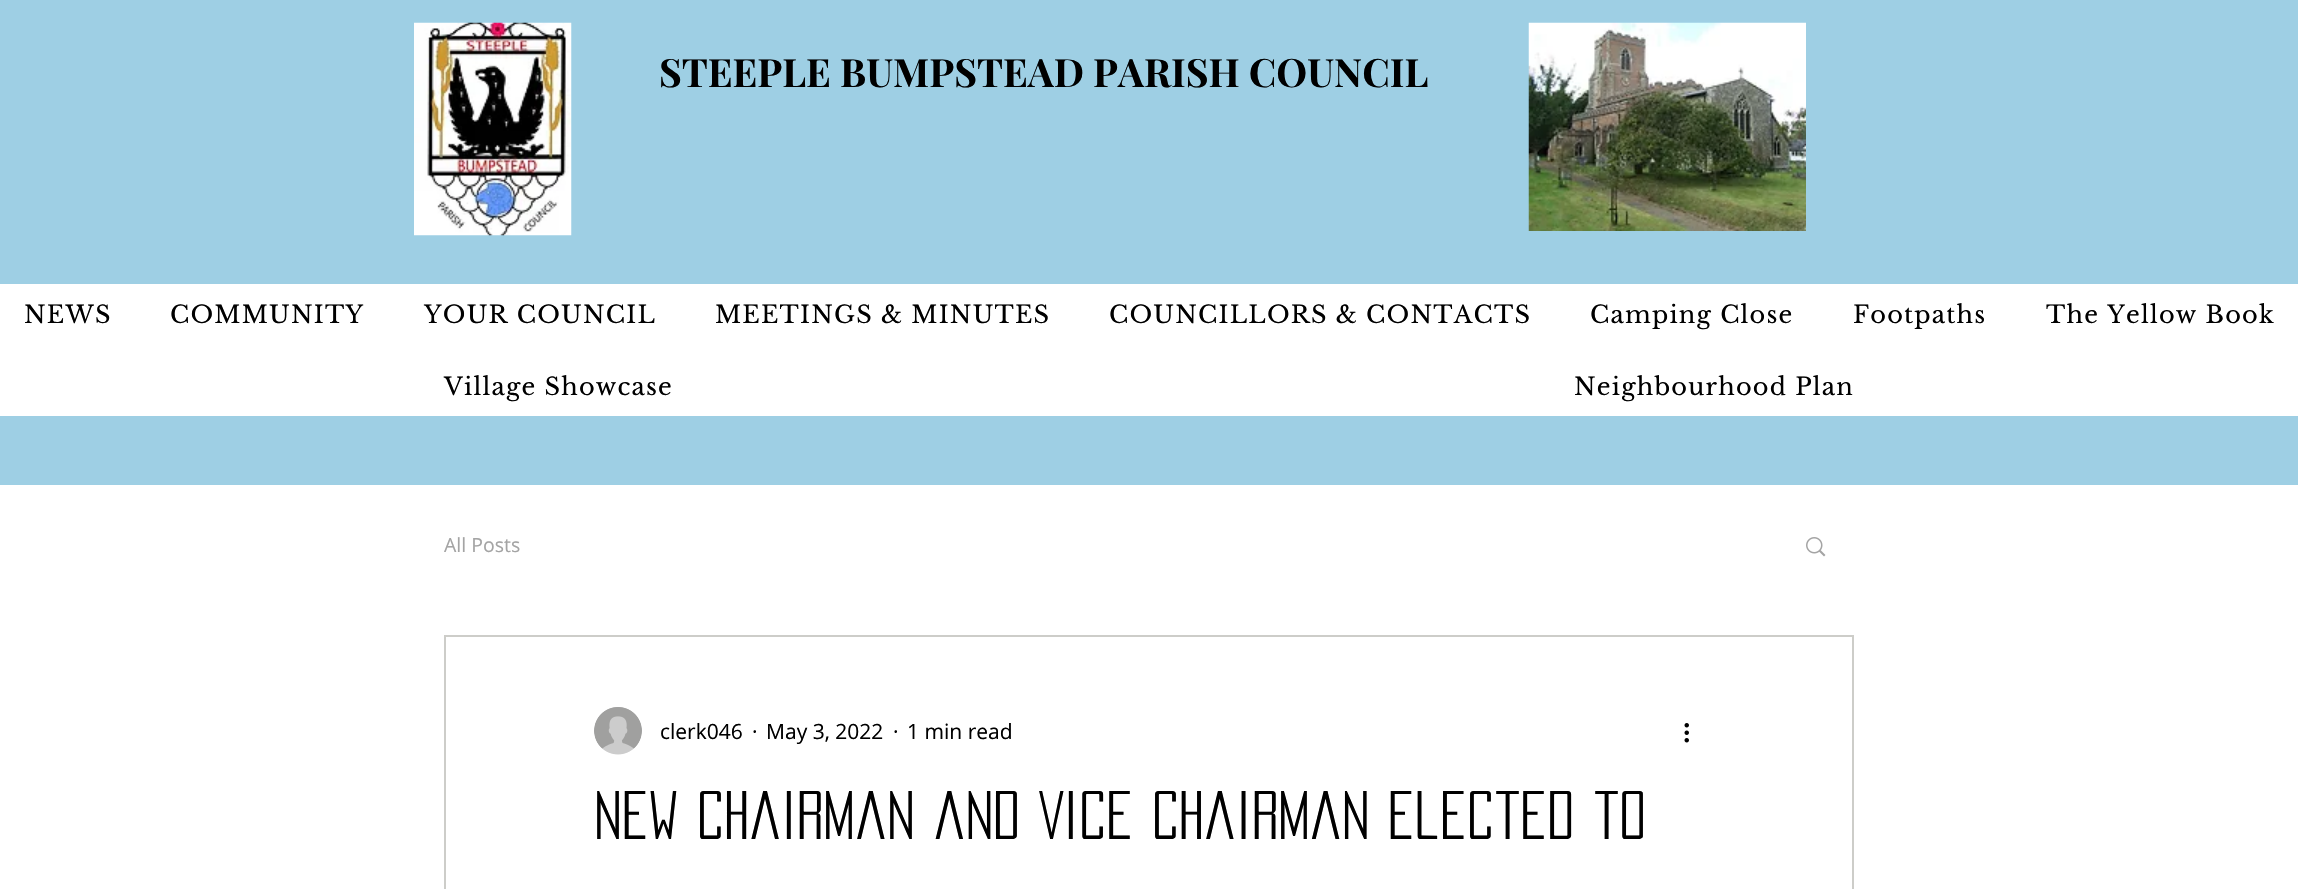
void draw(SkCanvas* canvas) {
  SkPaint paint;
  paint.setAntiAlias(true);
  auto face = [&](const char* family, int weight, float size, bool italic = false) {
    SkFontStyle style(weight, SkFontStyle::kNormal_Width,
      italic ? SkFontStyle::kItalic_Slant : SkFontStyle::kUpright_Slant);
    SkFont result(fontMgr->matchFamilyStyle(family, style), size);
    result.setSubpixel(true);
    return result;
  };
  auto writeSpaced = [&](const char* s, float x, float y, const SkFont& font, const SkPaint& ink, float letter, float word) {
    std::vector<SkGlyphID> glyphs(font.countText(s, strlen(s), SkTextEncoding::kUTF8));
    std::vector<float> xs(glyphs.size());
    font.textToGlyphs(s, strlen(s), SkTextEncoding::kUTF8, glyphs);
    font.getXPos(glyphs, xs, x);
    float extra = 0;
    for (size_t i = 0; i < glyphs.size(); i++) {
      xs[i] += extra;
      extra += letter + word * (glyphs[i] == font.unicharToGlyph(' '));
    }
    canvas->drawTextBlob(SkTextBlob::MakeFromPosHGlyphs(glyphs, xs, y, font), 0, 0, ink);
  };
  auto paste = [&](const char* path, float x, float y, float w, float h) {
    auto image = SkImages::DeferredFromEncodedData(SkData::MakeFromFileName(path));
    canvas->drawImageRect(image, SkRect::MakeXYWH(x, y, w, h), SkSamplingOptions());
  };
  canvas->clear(0xffffffff);
  paint.setColor(0xff9ecfe4);
  canvas->drawRect(SkRect::MakeXYWH(0, 0, 2298, 485), paint);
  paste("img/1.png", 414, 22, 158, 214);
  paste("img/2.png", 1528, 22, 278, 209);
  paint.setColor(0xffffffff);
  canvas->drawRect(SkRect::MakeXYWH(0, 284, 2298, 132), paint);
  paste("img/3.png", 1806, 537, 20, 20);
  paint.setStroke(true);
  paint.setStrokeWidth(2);
  paint.setColor(0xffcdcdc9);
  canvas->drawRect(SkRect::MakeXYWH(445, 636, 1408, 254), paint);
  paste("img/4.png", 594, 707, 48, 48);
  paste("img/5.png", 1684, 723, 5, 20);
  auto f0 = face("Playfair Display", 700, 39);
  paint.setStroke(false);
  paint.setColor(0xff000000);
  canvas->drawString("STEEPLE BUMPSTEAD PARISH COUNCIL", 659, 87, f0, paint);
  auto f1 = face("Libre Baskerville", 400, 24);
  {
    const struct { const char* s; float x, y; } items[] = {
      {"NEWS", 24, 323},
      {"COMMUNITY", 170, 323},
      {"YOUR COUNCIL", 424, 323},
      {"MEETINGS & MINUTES", 715, 323},
      {"COUNCILLORS & CONTACTS", 1109, 323},
      {"Camping Close", 1590, 323},
      {"Footpaths", 1853, 323},
      {"The Yellow Book", 2046, 323},
      {"Village Showcase", 444, 395},
      {"Neighbourhood Plan", 1574, 395},
    };
    for (auto [s, x, y] : items) {
      writeSpaced(s, x, y, f1, paint, 1.2f, 0);
    }
  }
  auto f2 = face("Open Sans", 400, 19.5f);
  paint.setColor(0xffa4a4a4);
  canvas->drawString("All Posts", 444, 552, f2, paint);
  auto f3 = face("Open Sans", 400, 21);
  paint.setColor(0xff000000);
  {
    const struct { const char* s; float x, y; } items[] = {
      {"clerk046", 660, 739},
      {"·", 752, 739},
      {"May 3, 2022", 766, 739},
      {"·", 893, 739},
      {"1 min read", 907, 739},
    };
    for (auto [s, x, y] : items) {
      canvas->drawString(s, x, y, f3, paint);
    }
  }
  auto f4 = face("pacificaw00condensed", 400, 60);
  canvas->drawString("New Chairman and Vice Chairman elected to", 594, 839, f4, paint);
}
